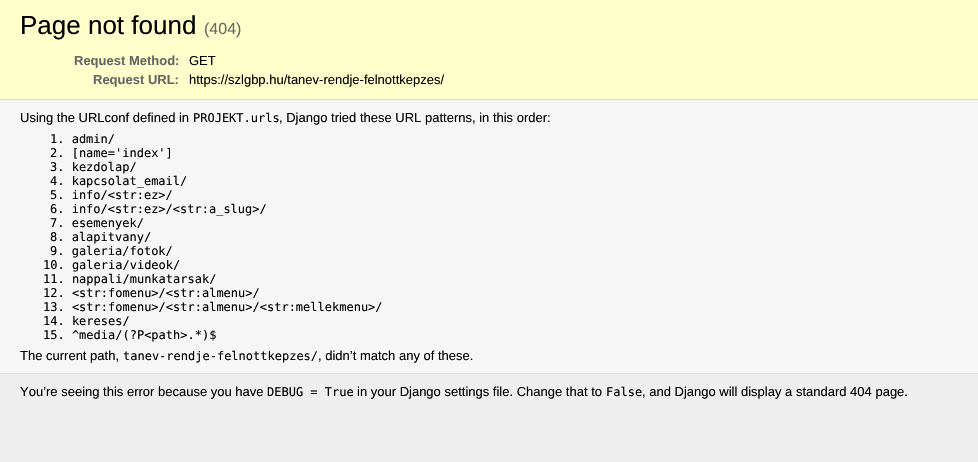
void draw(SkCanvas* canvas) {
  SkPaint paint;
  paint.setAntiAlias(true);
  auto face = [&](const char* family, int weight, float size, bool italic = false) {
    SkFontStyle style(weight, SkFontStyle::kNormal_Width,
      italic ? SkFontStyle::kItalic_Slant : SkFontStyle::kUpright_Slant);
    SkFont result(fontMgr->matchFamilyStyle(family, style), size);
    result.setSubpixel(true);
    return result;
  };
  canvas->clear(0xffeeeeee);
  {
    const struct { float x, y, w, h; SkColor color; } items[] = {
      {0, 0, 978, 99, 0xffffffcc},
      {0, 99, 978, 1, 0xffdddddd},
      {0, 100, 978, 273, 0xfff6f6f6},
      {0, 373, 978, 1, 0xffdddddd},
    };
    for (auto [x, y, w, h, color] : items) {
      paint.setColor(color);
      canvas->drawRect(SkRect::MakeXYWH(x, y, w, h), paint);
    }
  }
  auto f0 = face("Liberation Sans", 400, 26);
  paint.setColor(0xff000000);
  canvas->drawString("Page not found", 20, 34, f0, paint);
  auto f1 = face("Liberation Sans", 400, 16);
  paint.setColor(0xff666666);
  canvas->drawString("(404)", 204, 34, f1, paint);
  auto f2 = face("Liberation Sans", 700, 13);
  canvas->drawString("Request Method:", 74, 65, f2, paint);
  auto f3 = face("Liberation Sans", 400, 13);
  paint.setColor(0xff000000);
  canvas->drawString("GET", 189, 65, f3, paint);
  paint.setColor(0xff666666);
  canvas->drawString("Request URL:", 93, 84, f2, paint);
  paint.setColor(0xff000000);
  canvas->drawString("https://szlgbp.hu/tanev-rendje-felnottkepzes/", 189, 84, f3, paint);
  canvas->drawString("Using the URLconf defined in", 20, 122, f3, paint);
  auto f4 = face("DejaVu Sans Mono", 400, 12);
  canvas->drawString("PROJEKT.urls", 193, 122, f4, paint);
  canvas->drawString(", Django tried these URL patterns, in this order:", 279, 122, f3, paint);
  {
    const struct { const char* s; float x, y; } items[] = {
      {"1. admin/", 50, 143},
      {"2. [name='index']", 50, 157},
      {"3. kezdolap/", 50, 171},
      {"4. kapcsolat_email/", 50, 185},
      {"5. info/<str:ez>/", 50, 199},
      {"6. info/<str:ez>/<str:a_slug>/", 50, 213},
      {"7. esemenyek/", 50, 227},
      {"8. alapitvany/", 50, 241},
      {"9. galeria/fotok/", 50, 255},
      {"10. galeria/videok/", 43, 269},
      {"11. nappali/munkatarsak/", 43, 283},
      {"12. <str:fomenu>/<str:almenu>/", 43, 297},
      {"13. <str:fomenu>/<str:almenu>/<str:mellekmenu>/", 43, 311},
      {"14. kereses/", 43, 325},
      {"15. ^media/(?P<path>.*)$", 43, 339},
    };
    for (auto [s, x, y] : items) {
      canvas->drawString(s, x, y, f4, paint);
    }
  }
  canvas->drawString("The current path,", 20, 360, f3, paint);
  canvas->drawString("tanev-rendje-felnottkepzes/", 123, 360, f4, paint);
  canvas->drawString(", didn’t match any of these.", 318, 360, f3, paint);
  canvas->drawString("You’re seeing this error because you have", 20, 396, f3, paint);
  canvas->drawString("DEBUG = True", 267, 396, f4, paint);
  canvas->drawString("in your Django settings file. Change that to", 357, 396, f3, paint);
  canvas->drawString("False", 606, 396, f4, paint);
  canvas->drawString(", and Django will display a standard 404 page.", 642, 396, f3, paint);
}
